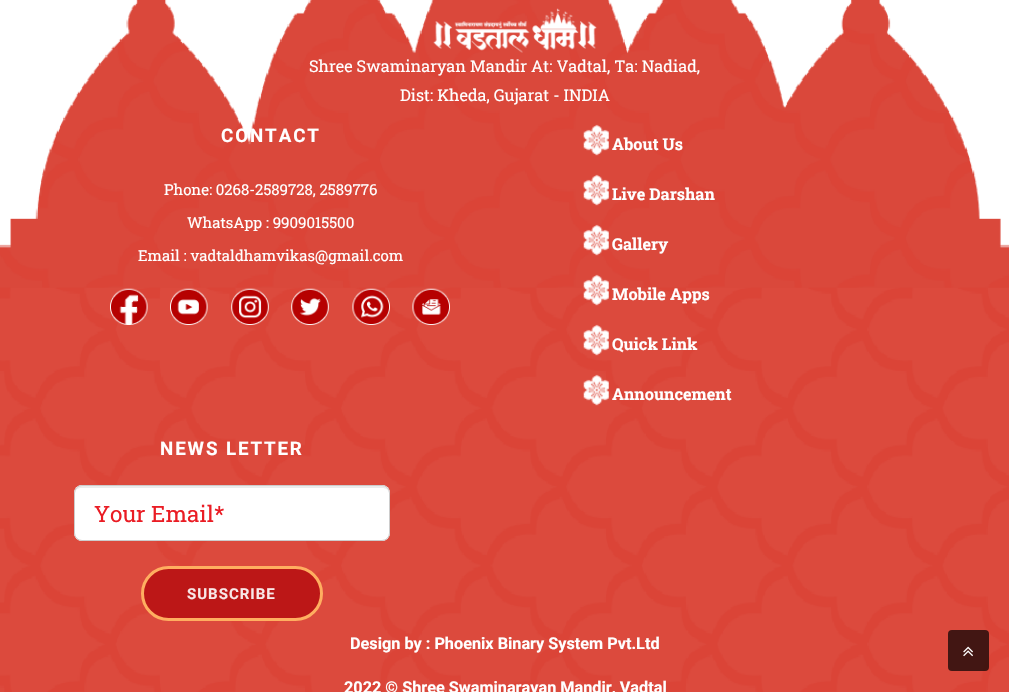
void draw(SkCanvas* canvas) {
  SkPaint paint;
  paint.setAntiAlias(true);
  auto face = [&](const char* family, int weight, float size, bool italic = false) {
    SkFontStyle style(weight, SkFontStyle::kNormal_Width,
      italic ? SkFontStyle::kItalic_Slant : SkFontStyle::kUpright_Slant);
    SkFont result(fontMgr->matchFamilyStyle(family, style), size);
    result.setSubpixel(true);
    return result;
  };
  auto writeSpaced = [&](const char* s, float x, float y, const SkFont& font, const SkPaint& ink, float letter, float word) {
    std::vector<SkGlyphID> glyphs(font.countText(s, strlen(s), SkTextEncoding::kUTF8));
    std::vector<float> xs(glyphs.size());
    font.textToGlyphs(s, strlen(s), SkTextEncoding::kUTF8, glyphs);
    font.getXPos(glyphs, xs, x);
    float extra = 0;
    for (size_t i = 0; i < glyphs.size(); i++) {
      xs[i] += extra;
      extra += letter + word * (glyphs[i] == font.unicharToGlyph(' '));
    }
    canvas->drawTextBlob(SkTextBlob::MakeFromPosHGlyphs(glyphs, xs, y, font), 0, 0, ink);
  };
  auto paste = [&](const char* path, float x, float y, float w, float h) {
    auto image = SkImages::DeferredFromEncodedData(SkData::MakeFromFileName(path));
    canvas->drawImageRect(image, SkRect::MakeXYWH(x, y, w, h), SkSamplingOptions());
  };
  auto shape = [&](const char* data, bool evenOdd = false) {
    SkPath result = *SkParsePath::FromSVGString(data);
    if (evenOdd) result.setFillType(SkPathFillType::kEvenOdd);
    return result;
  };
  canvas->clear(0xffffffff);
  paste("img/1.png", 0, 0, 1009, 692);
  paste("img/2.png", 433, 8, 164, 45);
  paste("img/3.png", 110, 288, 38, 37);
  paste("img/4.png", 170, 288, 38, 37);
  paste("img/5.png", 231, 288, 38, 37);
  paste("img/6.png", 291, 288, 38, 37);
  paste("img/7.png", 352, 288, 38, 37);
  paste("img/8.png", 412, 288, 38, 37);
  paste("img/9.png", 583, 124, 26, 32);
  paste("img/9.png", 583, 174, 26, 32);
  paste("img/10.png", 583, 224, 26, 32);
  paste("img/11.png", 583, 274, 26, 32);
  paste("img/12.png", 583, 324, 26, 32);
  paste("img/13.png", 583, 374, 26, 32);
  paint.setColor(0xffffffff);
  canvas->drawRoundRect(SkRect::MakeXYWH(74, 485, 316, 56), 8, 8, paint);
  paint.setColor(0xffececec);
  canvas->drawPath(shape("M81 488H382C386 488 389 490 389 494C389 490 388 486 383 486H80C76 487 75 491 75 494C75 490 78 488 81 488Z"), paint);
  paint.setStroke(true);
  paint.setStrokeWidth(1);
  paint.setColor(0xffcccccc);
  canvas->drawRoundRect(SkRect::MakeXYWH(74.5f, 485.5f, 315, 55), 7.5f, 7.5f, paint);
  paint.setStroke(false);
  paint.setColor(0xffbc1717);
  canvas->drawRoundRect(SkRect::MakeXYWH(142.5f, 567.5f, 179, 52), 26, 26, paint);
  paint.setStroke(true);
  paint.setStrokeWidth(3);
  paint.setColor(0xffffae60);
  canvas->drawRoundRect(SkRect::MakeXYWH(142.5f, 567.5f, 179, 52), 26, 26, paint);
  paint.setStroke(false);
  paint.setColor(0xb3000000);
  canvas->drawRoundRect(SkRect::MakeXYWH(948, 630, 41, 41), 4, 4, paint);
  paste("img/14.png", 963, 646, 10, 11);
  auto f0 = face("Roboto Slab", 400, 16.25f);
  paint.setColor(0xffffffff);
  canvas->drawString("Shree Swaminaryan Mandir At: Vadtal, Ta: Nadiad,", 309, 72, f0, paint);
  canvas->drawString("Dist: Kheda, Gujarat - INDIA", 400, 101, f0, paint);
  auto f1 = face("Roboto", 700, 18.75f);
  writeSpaced("CONTACT", 221, 142, f1, paint, 1.9f, 0);
  auto f2 = face("Roboto Slab", 400, 15);
  {
    const struct { const char* s; float x, y; } items[] = {
      {"Phone: 0268-2589728, 2589776", 164, 195},
      {"WhatsApp : 9909015500", 187, 228},
      {"Email : vadtaldhamvikas@gmail.com", 138, 261},
    };
    for (auto [s, x, y] : items) {
      canvas->drawString(s, x, y, f2, paint);
    }
  }
  auto f3 = face("Roboto Slab", 700, 16.25f);
  {
    const struct { const char* s; float x, y; } items[] = {
      {"About Us", 612, 150},
      {"Live Darshan", 612, 200},
      {"Gallery", 612, 250},
      {"Mobile Apps", 612, 300},
      {"Quick Link", 612, 350},
      {"Announcement", 612, 400},
    };
    for (auto [s, x, y] : items) {
      canvas->drawString(s, x, y, f3, paint);
    }
  }
  writeSpaced("NEWS LETTER", 160, 455, f1, paint, 1.9f, 0);
  auto f4 = face("Roboto Slab", 400, 22.5f);
  paint.setColor(0xffea1c24);
  canvas->drawString("Your Email*", 94, 522, f4, paint);
  auto f5 = face("Roboto", 700, 15);
  paint.setColor(0xfff8e8e8);
  writeSpaced("SUBSCRIBE", 187, 599, f5, paint, 1, 0);
  auto f6 = face("Roboto", 700, 16.25f);
  paint.setColor(0xffffffff);
  canvas->drawString("Design by : Phoenix Binary System Pvt.Ltd", 350, 649, f6, paint);
  canvas->drawString("2022 © Shree Swaminarayan Mandir, Vadtal", 344, 693, f6, paint);
}
